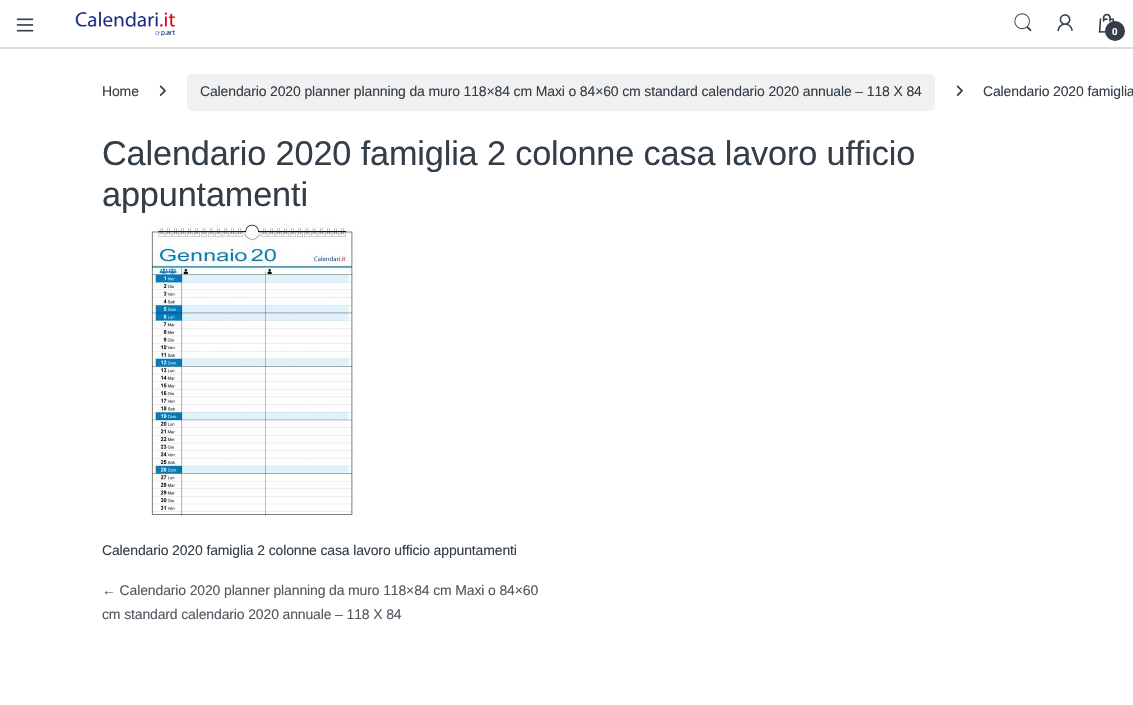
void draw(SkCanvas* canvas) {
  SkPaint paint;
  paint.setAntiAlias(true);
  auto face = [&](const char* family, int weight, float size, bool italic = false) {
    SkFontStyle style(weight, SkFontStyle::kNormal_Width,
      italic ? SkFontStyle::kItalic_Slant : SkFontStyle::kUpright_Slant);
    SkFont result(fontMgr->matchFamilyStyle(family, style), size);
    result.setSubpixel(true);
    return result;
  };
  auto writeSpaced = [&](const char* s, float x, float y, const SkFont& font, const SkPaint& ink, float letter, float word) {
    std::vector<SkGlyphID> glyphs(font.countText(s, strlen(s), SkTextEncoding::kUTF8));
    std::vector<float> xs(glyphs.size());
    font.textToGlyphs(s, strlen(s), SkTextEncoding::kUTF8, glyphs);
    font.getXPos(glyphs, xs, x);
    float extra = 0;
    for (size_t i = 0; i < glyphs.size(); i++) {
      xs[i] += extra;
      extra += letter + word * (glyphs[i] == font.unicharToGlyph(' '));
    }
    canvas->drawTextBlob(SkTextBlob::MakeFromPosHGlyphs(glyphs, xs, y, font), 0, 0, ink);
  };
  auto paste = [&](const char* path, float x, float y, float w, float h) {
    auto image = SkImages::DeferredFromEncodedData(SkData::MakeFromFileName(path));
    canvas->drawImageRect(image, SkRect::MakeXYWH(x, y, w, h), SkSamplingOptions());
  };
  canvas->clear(0xffffffff);
  paint.setColor(0xffdddddd);
  canvas->drawRect(SkRect::MakeXYWH(0, 47, 1133, 2), paint);
  paste("img/1.png", 16, 18, 18, 14);
  paste("img/2.png", 75, 11, 100, 25);
  paste("img/3.png", 1014, 13, 18, 19);
  paste("img/4.png", 1057, 14, 16, 18);
  paste("img/5.png", 1098, 13, 17, 20);
  paint.setColor(0xff333e48);
  canvas->drawCircle(1115, 31, 10, paint);
  paste("img/6.png", 159, 85, 7, 11);
  paint.setColor(0xfff1f1f1);
  canvas->drawRoundRect(SkRect::MakeXYWH(187, 74, 748, 37), 5, 5, paint);
  paste("img/6.png", 956, 85, 7, 11);
  paste("img/7.png", 149, 223, 209, 296);
  auto f0 = face("Liberation Sans", 700, 10);
  paint.setColor(0xffffffff);
  writeSpaced("0", 1112, 35, f0, paint, -0.14f, 0);
  auto f1 = face("Liberation Sans", 400, 14);
  paint.setColor(0xff333e48);
  {
    const struct { const char* s; float x, y; } items[] = {
      {"Home", 102, 96},
      {"Calendario 2020 planner planning da muro 118×84 cm Maxi o 84×60 cm standard calendario 2020 annuale – 118 X 84", 200, 96},
      {"Calendario 2020 famiglia", 983, 96},
    };
    for (auto [s, x, y] : items) {
      writeSpaced(s, x, y, f1, paint, -0.14f, 0);
    }
  }
  auto f2 = face("Liberation Sans", 400, 34.25f);
  writeSpaced("Calendario 2020 famiglia 2 colonne casa lavoro ufficio", 102, 165, f2, paint, -0.14f, 0);
  writeSpaced("appuntamenti", 102, 206, f2, paint, -0.14f, 0);
  writeSpaced("Calendario 2020 famiglia 2 colonne casa lavoro ufficio appuntamenti", 102, 555, f1, paint, -0.14f, 0);
  paint.setColor(0xff575560);
  writeSpaced("← Calendario 2020 planner planning da muro 118×84 cm Maxi o 84×60", 102, 595, f1, paint, -0.14f, 0);
  writeSpaced("cm standard calendario 2020 annuale – 118 X 84", 102, 619, f1, paint, -0.14f, 0);
}
